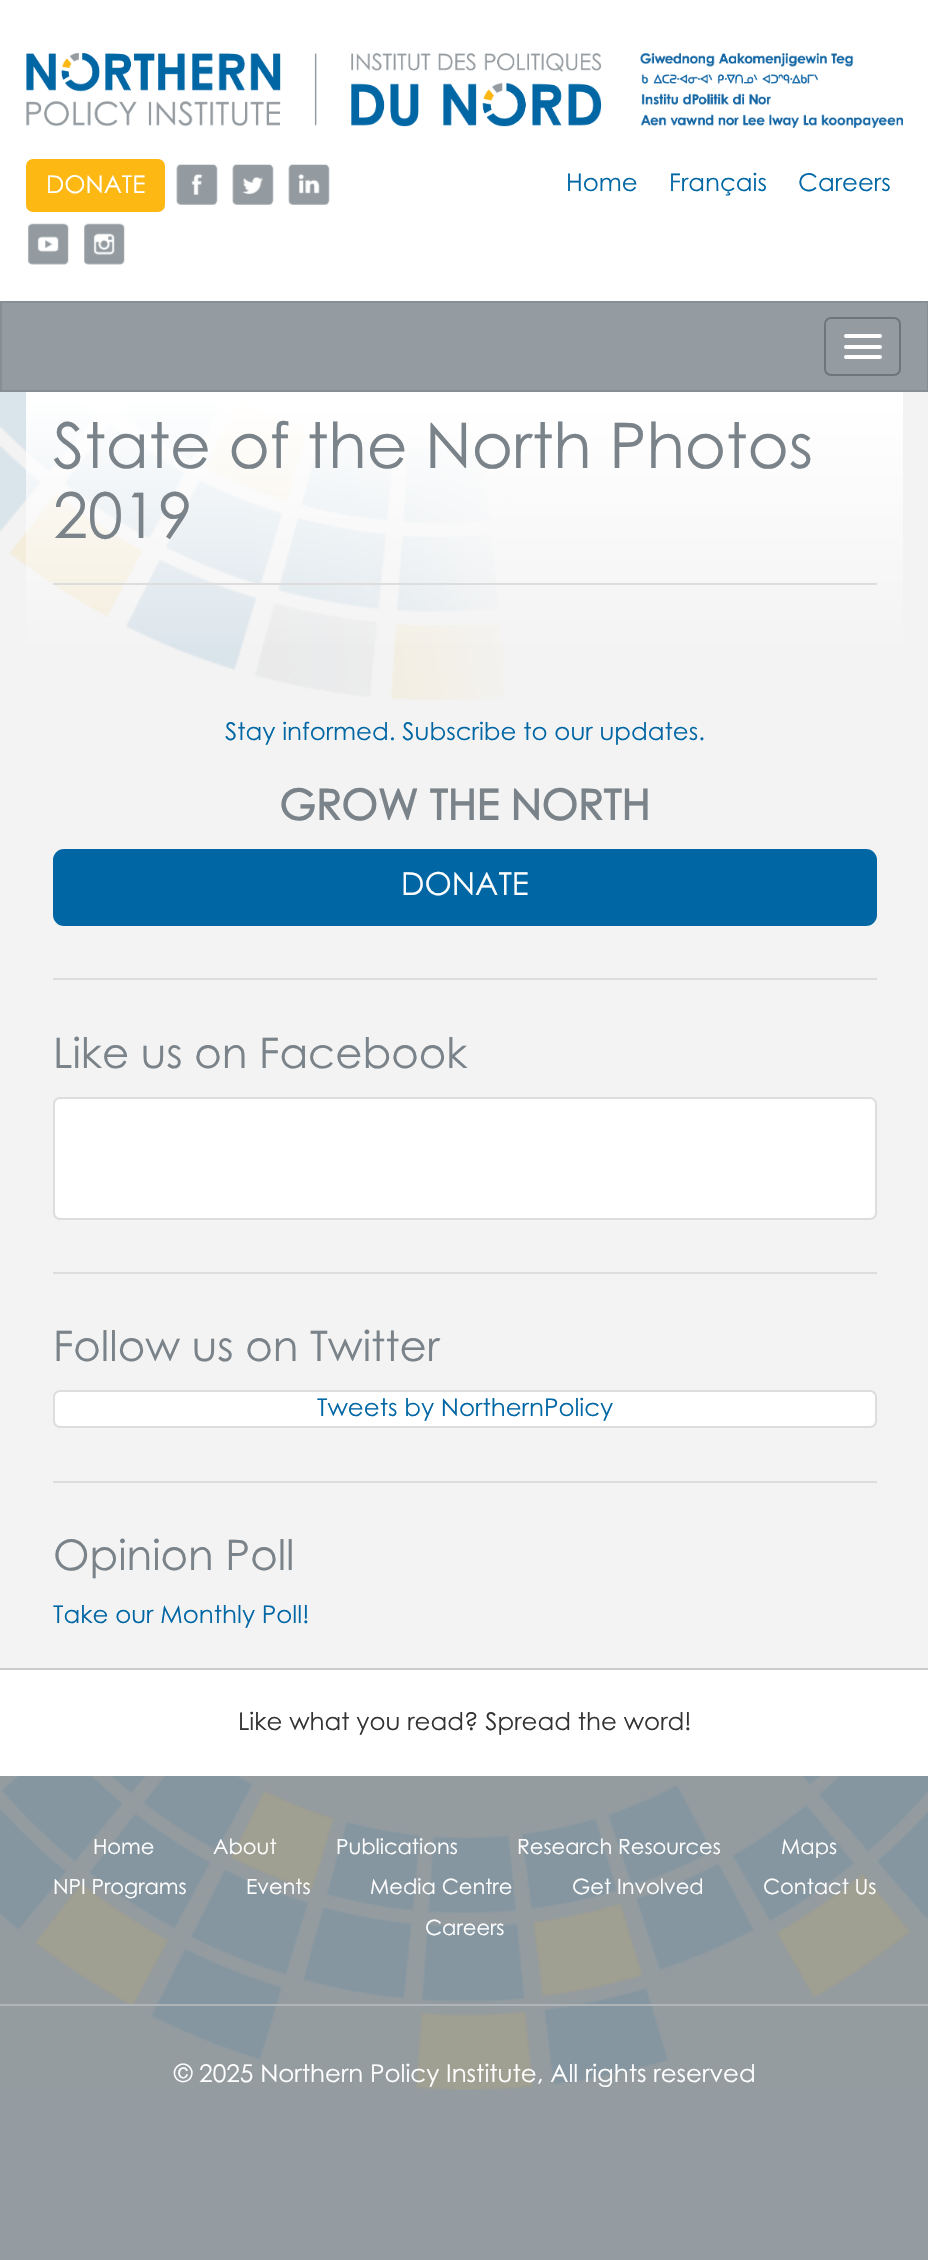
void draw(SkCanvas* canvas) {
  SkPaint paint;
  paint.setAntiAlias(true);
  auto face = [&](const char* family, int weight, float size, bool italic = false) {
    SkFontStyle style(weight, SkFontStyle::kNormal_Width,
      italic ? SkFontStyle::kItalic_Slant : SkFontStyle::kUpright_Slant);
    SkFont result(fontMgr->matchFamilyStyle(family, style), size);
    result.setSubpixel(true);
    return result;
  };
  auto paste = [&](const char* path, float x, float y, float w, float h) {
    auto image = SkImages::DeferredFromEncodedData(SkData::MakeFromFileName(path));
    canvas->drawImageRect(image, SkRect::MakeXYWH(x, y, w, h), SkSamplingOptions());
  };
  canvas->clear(0xff959ca1);
  paint.setColor(0xffffffff);
  canvas->drawRect(SkRect::MakeXYWH(0, 0, 928, 301), paint);
  paste("img/1.png", 26, 53, 877, 75);
  paint.setColor(0xfffdb813);
  canvas->drawRoundRect(SkRect::MakeXYWH(27, 160, 137, 51), 6, 6, paint);
  paint.setStroke(true);
  paint.setStrokeWidth(2);
  canvas->drawRoundRect(SkRect::MakeXYWH(27, 160, 137, 51), 6, 6, paint);
  paste("img/2.png", 176, 164, 42, 41);
  paste("img/3.png", 232, 164, 42, 41);
  paste("img/4.png", 288, 164, 42, 41);
  paste("img/5.png", 27, 223, 42, 42);
  paste("img/6.png", 84, 223, 41, 42);
  paint.setColor(0xff878f95);
  canvas->drawRect(SkRect::MakeXYWH(1, 302, 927, 89), paint);
  paint.setColor(0xff6e767c);
  canvas->drawRoundRect(SkRect::MakeXYWH(825, 318, 75, 57), 6, 6, paint);
  paint.setStroke(false);
  paint.setColor(0xffffffff);
  canvas->drawRoundRect(SkRect::MakeXYWH(844, 334, 38, 4), 2, 2, paint);
  canvas->drawRoundRect(SkRect::MakeXYWH(844, 345, 38, 4), 2, 2, paint);
  canvas->drawRoundRect(SkRect::MakeXYWH(844, 355, 38, 4), 2, 2, paint);
  paint.setColor(0xfff3f3f3);
  canvas->drawRect(SkRect::MakeXYWH(0, 392, 928, 1276), paint);
  paste("img/7.png", 0, 392, 505, 308);
  {
    const SkColor colors[] = {0xffffffff, 0x00ffffff};
    const float stops[] = {0, 1};
    const SkPoint ends[] = {{465, 392}, {465, 663}};
    paint.setShader(SkGradientShader::MakeLinear(ends, colors, stops, 2, SkTileMode::kClamp));
    paint.setAlpha(255);
  }
  canvas->drawRect(SkRect::MakeXYWH(26, 392, 877, 251), paint);
  paint.setShader(nullptr);
  paint.setColor(0xffdddddd);
  canvas->drawRect(SkRect::MakeXYWH(53, 583, 824, 2), paint);
  paint.setColor(0xff0066a4);
  canvas->drawRoundRect(SkRect::MakeXYWH(53, 849, 824, 77), 11, 11, paint);
  paint.setColor(0xffdddddd);
  canvas->drawRect(SkRect::MakeXYWH(53, 978, 824, 2), paint);
  paint.setColor(0xffffffff);
  canvas->drawRoundRect(SkRect::MakeXYWH(54, 1098, 822, 121), 6, 6, paint);
  paint.setStroke(true);
  paint.setColor(0xffdddddd);
  canvas->drawRoundRect(SkRect::MakeXYWH(54, 1098, 822, 121), 6, 6, paint);
  paint.setStroke(false);
  canvas->drawRect(SkRect::MakeXYWH(53, 1272, 824, 2), paint);
  paint.setColor(0xffffffff);
  canvas->drawRoundRect(SkRect::MakeXYWH(54, 1391, 822, 36), 6, 6, paint);
  paint.setStroke(true);
  paint.setColor(0xffdddddd);
  canvas->drawRoundRect(SkRect::MakeXYWH(54, 1391, 822, 36), 6, 6, paint);
  paint.setStroke(false);
  canvas->drawRect(SkRect::MakeXYWH(53, 1481, 824, 2), paint);
  paste("img/8.png", 0, 1776, 928, 314);
  {
    const struct { float x, y, w, h; SkColor color; } items[] = {
      {0, 1670, 928, 106, 0xffffffff},
      {0, 1668, 928, 2, 0xffcccccc},
      {0, 2004, 928, 2, 0xffb0b5b9},
    };
    for (auto [x, y, w, h, color] : items) {
      paint.setColor(color);
      canvas->drawRect(SkRect::MakeXYWH(x, y, w, h), paint);
    }
  }
  auto f0 = face("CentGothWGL", 400, 24.5f);
  paint.setColor(0xffffffff);
  canvas->drawString("DONATE", 46, 193, f0, paint);
  paint.setColor(0xff0066a4);
  {
    const struct { const char* s; float x, y; } items[] = {
      {"Home", 566, 191},
      {"Français", 669, 191},
      {"Careers", 798, 191},
    };
    for (auto [s, x, y] : items) {
      canvas->drawString(s, x, y, f0, paint);
    }
  }
  auto f1 = face("CentGothWGL", 400, 63);
  paint.setColor(0xff7a8389);
  canvas->drawString("State of the North Photos", 53, 468, f1, paint);
  canvas->drawString("2019", 53, 538, f1, paint);
  paint.setColor(0xff0066a4);
  canvas->drawString("Stay informed. Subscribe to our updates.", 225, 740, f0, paint);
  auto f2 = face("CentGothWGL", 700, 42);
  paint.setColor(0xff7a8389);
  canvas->drawString("GROW THE NORTH", 279, 820, f2, paint);
  auto f3 = face("CentGothWGL", 400, 31.5f);
  paint.setColor(0xffffffff);
  canvas->drawString("DONATE", 401, 895, f3, paint);
  auto f4 = face("CentGothWGL", 400, 42);
  paint.setColor(0xff7a8389);
  canvas->drawString("Like us on Facebook", 53, 1068, f4, paint);
  canvas->drawString("Follow us on Twitter", 53, 1361, f4, paint);
  paint.setColor(0xff0066a4);
  canvas->drawString("Tweets by NorthernPolicy", 317, 1416, f0, paint);
  paint.setColor(0xff7a8389);
  canvas->drawString("Opinion Poll", 53, 1570, f4, paint);
  paint.setColor(0xff0066a4);
  canvas->drawString("Take our Monthly Poll!", 53, 1623, f0, paint);
  paint.setColor(0xff333333);
  canvas->drawString("Like what you read? Spread the word!", 238, 1730, f0, paint);
  auto f5 = face("CentGothWGL", 400, 21);
  paint.setColor(0xffffffff);
  {
    const struct { const char* s; float x, y; } items[] = {
      {"Home", 93, 1854},
      {"About", 213, 1854},
      {"Publications", 336, 1854},
      {"Research Resources", 517, 1854},
      {"Maps", 781, 1854},
      {"NPI Programs", 53, 1894},
      {"Events", 246, 1894},
      {"Media Centre", 370, 1894},
      {"Get Involved", 572, 1894},
      {"Contact Us", 763, 1894},
      {"Careers", 425, 1935},
    };
    for (auto [s, x, y] : items) {
      canvas->drawString(s, x, y, f5, paint);
    }
  }
  canvas->drawString("© 2025 Northern Policy Institute, All rights reserved", 174, 2082, f0, paint);
}
